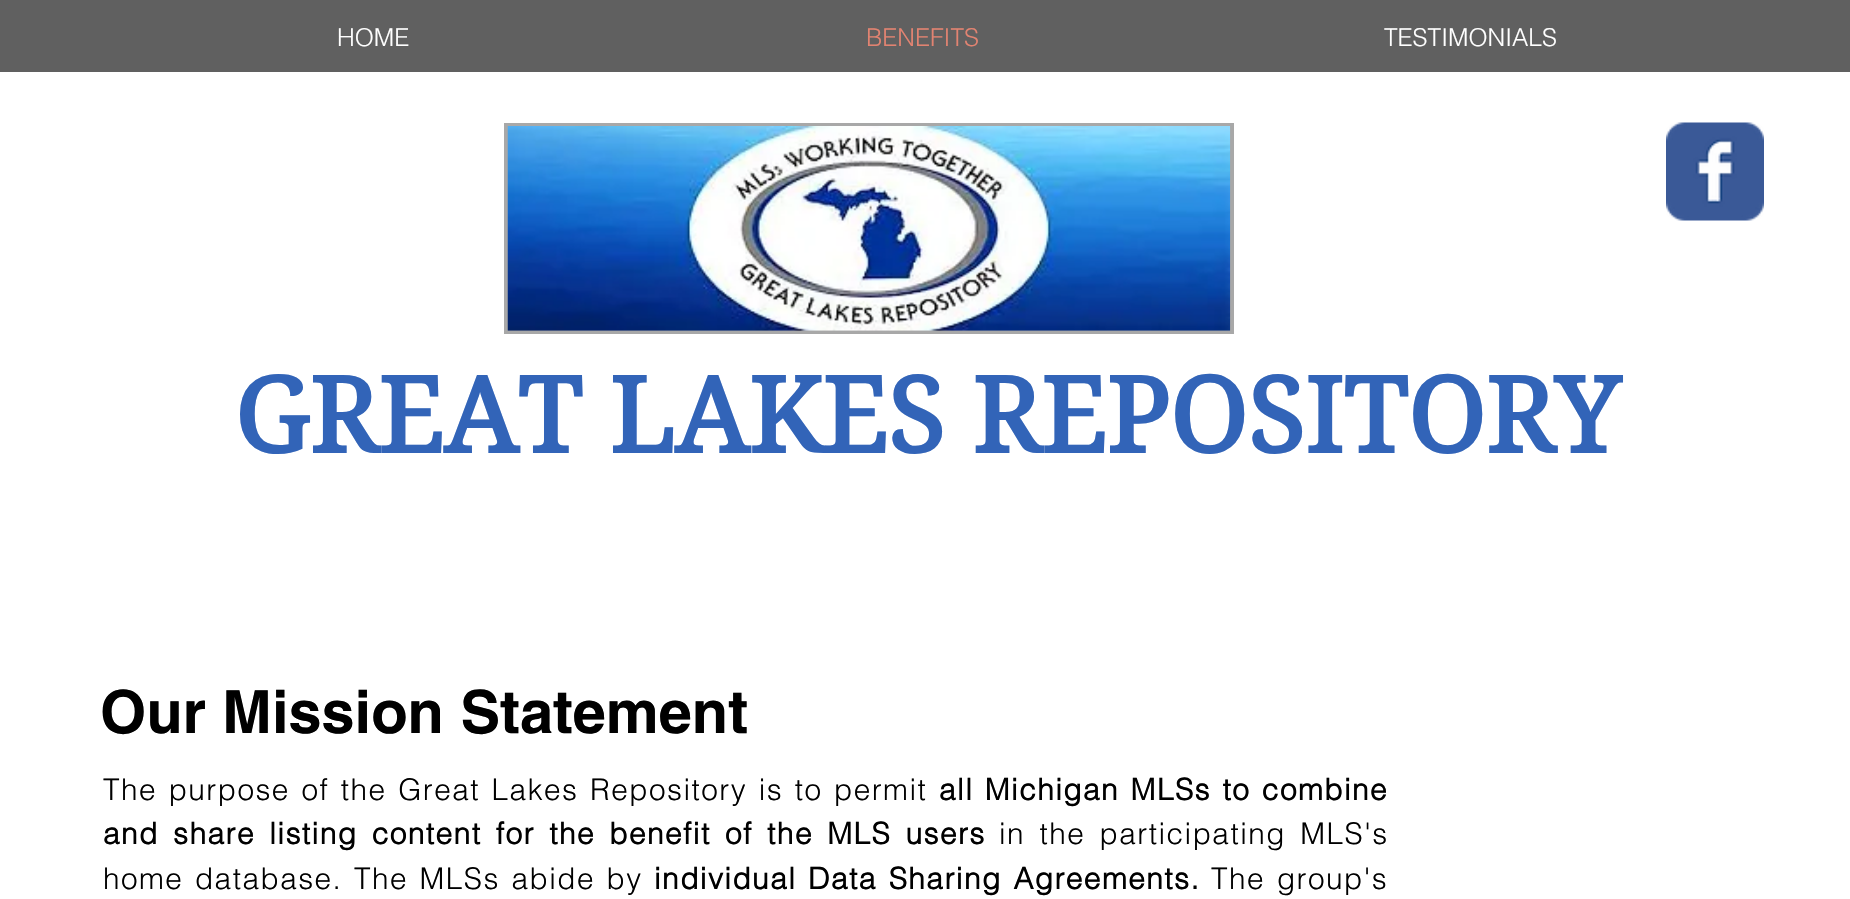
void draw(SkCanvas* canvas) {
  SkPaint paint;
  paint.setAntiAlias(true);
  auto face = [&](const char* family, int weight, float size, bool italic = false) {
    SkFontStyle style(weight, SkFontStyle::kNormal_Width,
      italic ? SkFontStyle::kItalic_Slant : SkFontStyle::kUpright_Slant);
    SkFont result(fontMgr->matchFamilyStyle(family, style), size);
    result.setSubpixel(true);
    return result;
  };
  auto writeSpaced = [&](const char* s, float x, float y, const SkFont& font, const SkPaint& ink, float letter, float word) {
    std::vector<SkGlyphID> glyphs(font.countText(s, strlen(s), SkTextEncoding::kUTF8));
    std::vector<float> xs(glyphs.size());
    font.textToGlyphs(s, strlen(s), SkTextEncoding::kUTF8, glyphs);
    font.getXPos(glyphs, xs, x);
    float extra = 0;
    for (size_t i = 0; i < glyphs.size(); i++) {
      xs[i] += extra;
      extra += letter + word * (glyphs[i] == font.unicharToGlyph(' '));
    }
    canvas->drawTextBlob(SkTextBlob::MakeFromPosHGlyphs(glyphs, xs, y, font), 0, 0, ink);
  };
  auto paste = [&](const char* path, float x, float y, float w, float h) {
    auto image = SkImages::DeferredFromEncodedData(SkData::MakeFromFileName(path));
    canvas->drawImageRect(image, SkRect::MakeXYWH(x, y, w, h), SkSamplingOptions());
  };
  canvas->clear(0xffffffff);
  paint.setColor(0xff606060);
  canvas->drawRect(SkRect::MakeXYWH(0, 0, 1850, 72), paint);
  paint.setColor(0xffa8a8a8);
  canvas->drawRect(SkRect::MakeXYWH(504, 123, 730, 211), paint);
  paste("img/1.png", 507, 126, 724, 205);
  paste("img/2.png", 1666, 122, 98, 99);
  auto f0 = face("helvetica", 300, 24.5f);
  paint.setColor(0xffffffff);
  canvas->drawString("HOME", 337, 46, f0, paint);
  paint.setColor(0xffe28371);
  canvas->drawString("BENEFITS", 866, 46, f0, paint);
  paint.setColor(0xffffffff);
  canvas->drawString("TESTIMONIALS", 1384, 46, f0, paint);
  auto f1 = face("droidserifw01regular", 700, 105);
  paint.setColor(0xff3264b8);
  canvas->drawString("GREAT LAKES REPOSITORY", 234, 453, f1, paint);
  auto f2 = face("helvetica", 700, 59.5f);
  paint.setColor(0xff000000);
  canvas->drawString("Our Mission Statement", 100, 733, f2, paint);
  auto f3 = face("helvetica", 300, 29.75f);
  writeSpaced("The purpose of the Great Lakes Repository is to permit", 103, 800, f3, paint, 1.5f, 1.75f);
  auto f4 = face("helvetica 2", 700, 29.75f);
  writeSpaced("all Michigan MLSs to combine", 939, 800, f4, paint, 1.5f, 1.75f);
  writeSpaced("and share listing content for the benefit of the MLS users", 103, 844, f4, paint, 1.5f, 4.5f);
  writeSpaced("in the participating MLS's", 999, 844, f3, paint, 1.5f, 4.5f);
  writeSpaced("home database. The MLSs abide by", 103, 889, f3, paint, 1.5f, 1.75f);
  writeSpaced("individual Data Sharing Agreements.", 654, 889, f4, paint, 1.5f, 2);
  writeSpaced("The group's", 1211, 889, f3, paint, 1.5f, 2);
}
